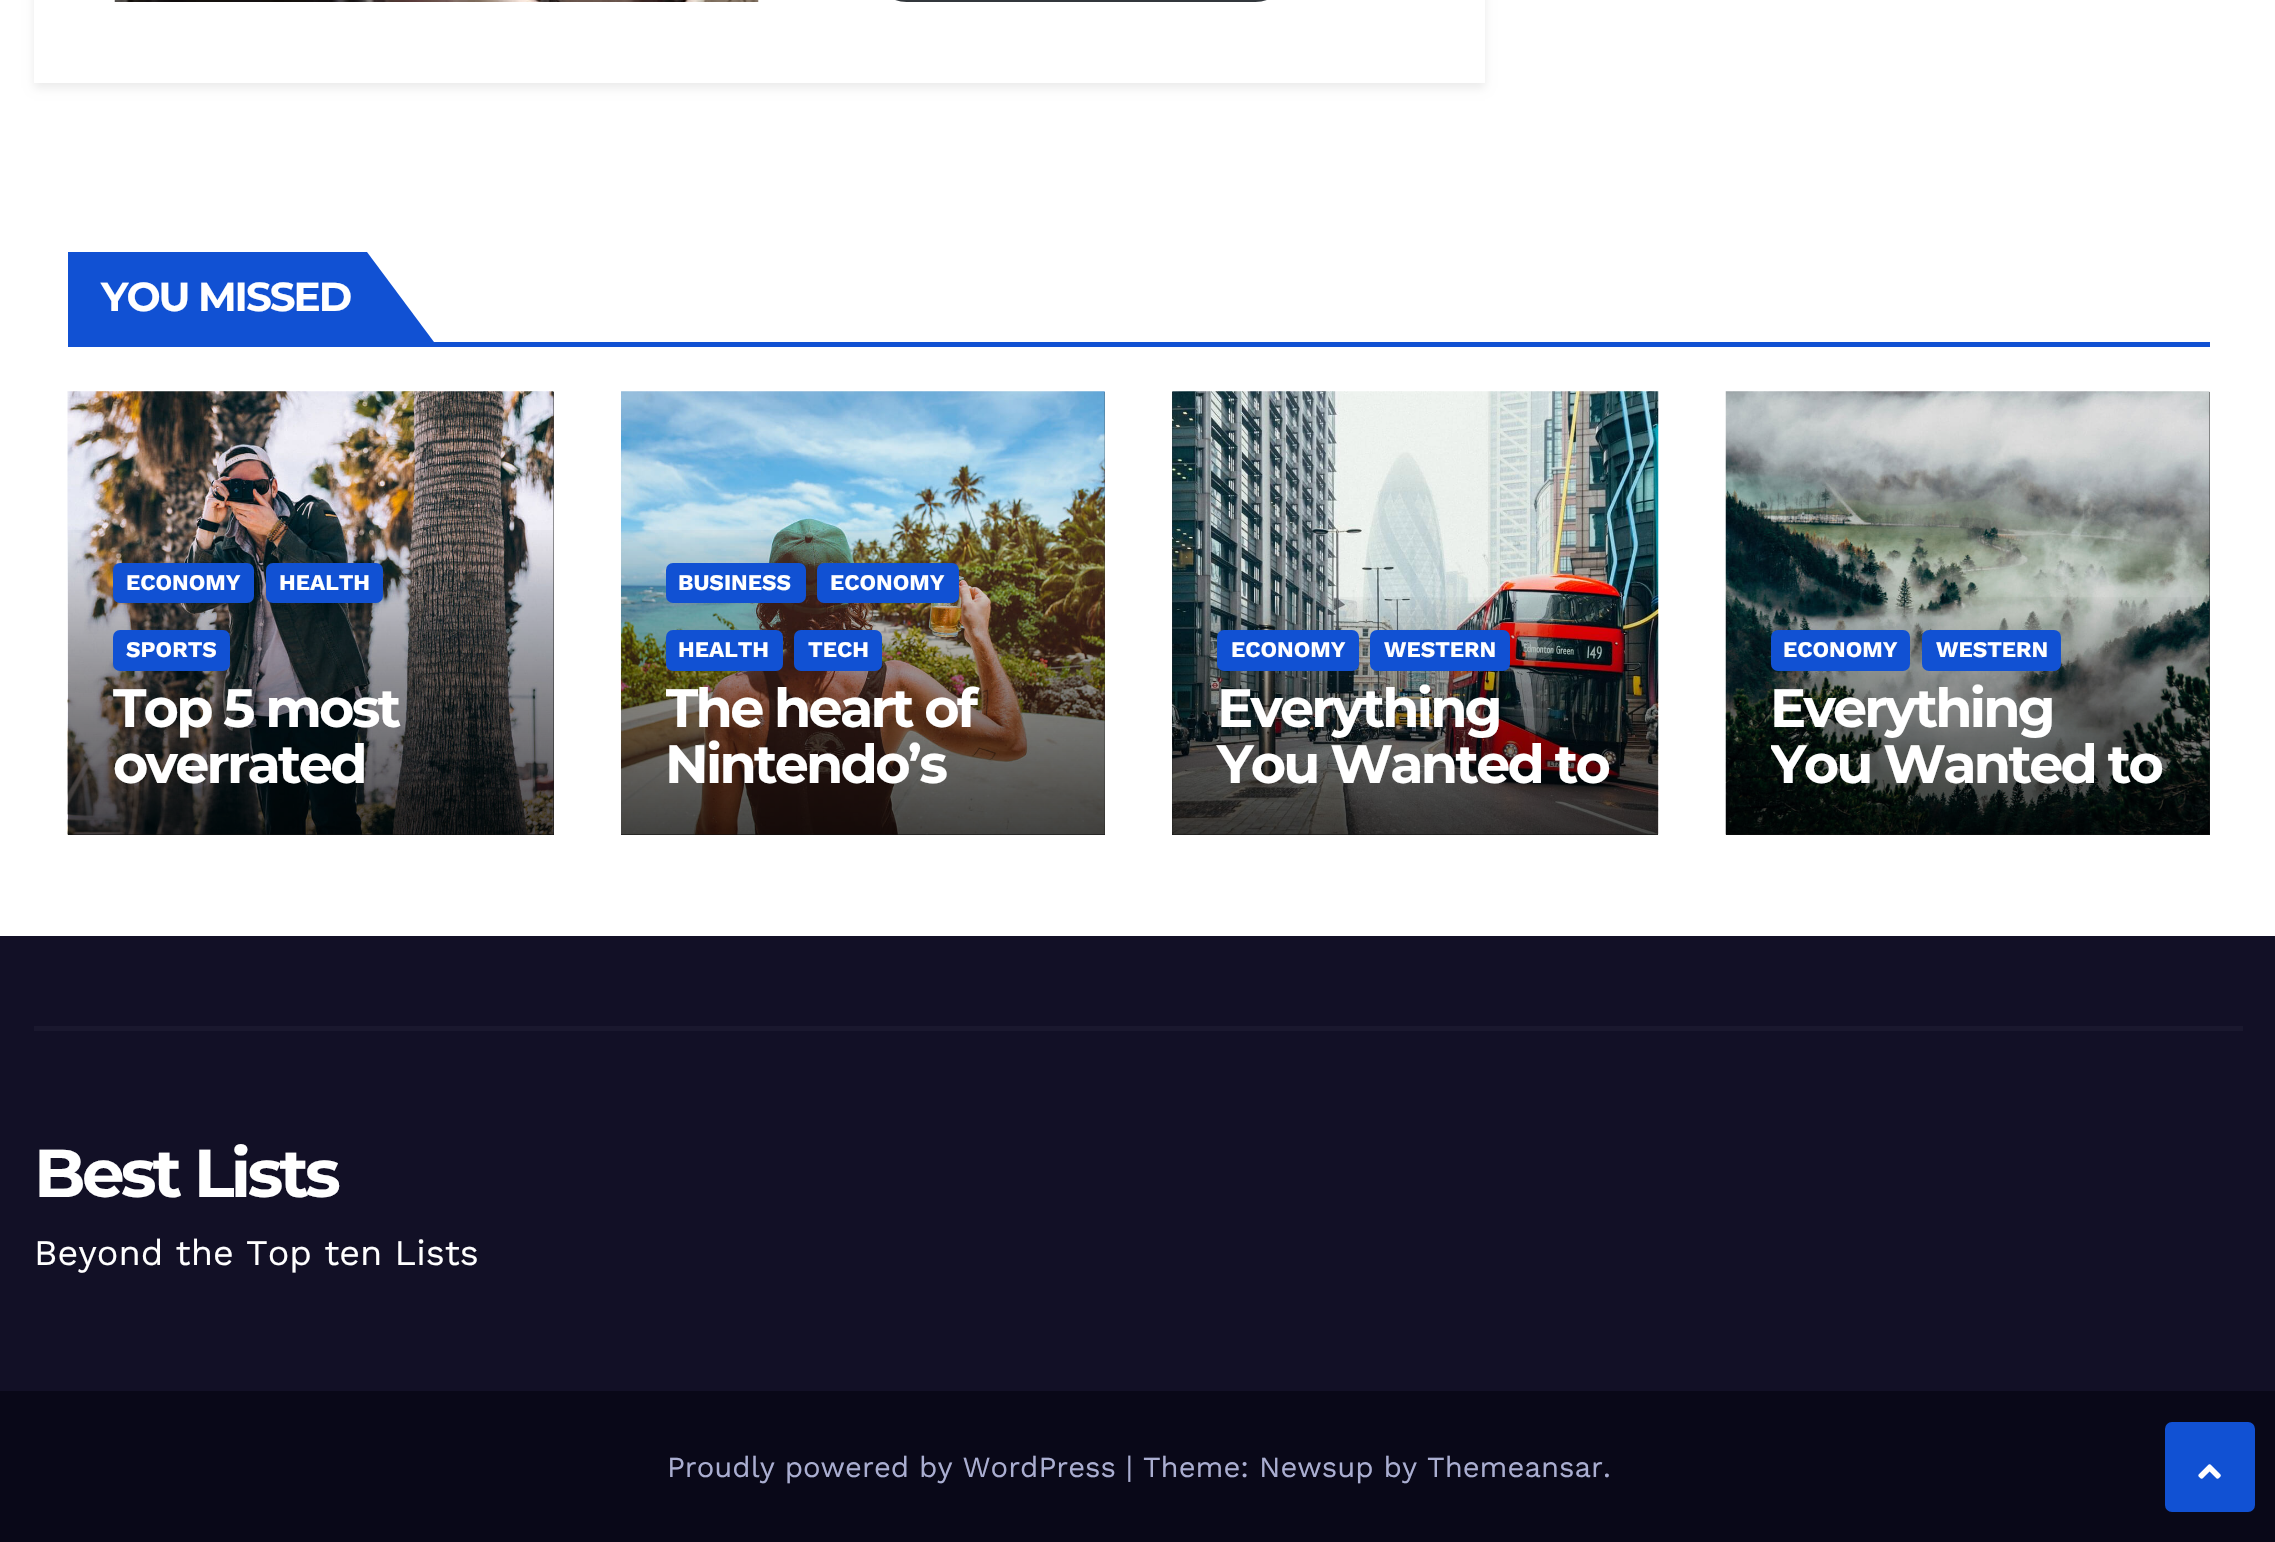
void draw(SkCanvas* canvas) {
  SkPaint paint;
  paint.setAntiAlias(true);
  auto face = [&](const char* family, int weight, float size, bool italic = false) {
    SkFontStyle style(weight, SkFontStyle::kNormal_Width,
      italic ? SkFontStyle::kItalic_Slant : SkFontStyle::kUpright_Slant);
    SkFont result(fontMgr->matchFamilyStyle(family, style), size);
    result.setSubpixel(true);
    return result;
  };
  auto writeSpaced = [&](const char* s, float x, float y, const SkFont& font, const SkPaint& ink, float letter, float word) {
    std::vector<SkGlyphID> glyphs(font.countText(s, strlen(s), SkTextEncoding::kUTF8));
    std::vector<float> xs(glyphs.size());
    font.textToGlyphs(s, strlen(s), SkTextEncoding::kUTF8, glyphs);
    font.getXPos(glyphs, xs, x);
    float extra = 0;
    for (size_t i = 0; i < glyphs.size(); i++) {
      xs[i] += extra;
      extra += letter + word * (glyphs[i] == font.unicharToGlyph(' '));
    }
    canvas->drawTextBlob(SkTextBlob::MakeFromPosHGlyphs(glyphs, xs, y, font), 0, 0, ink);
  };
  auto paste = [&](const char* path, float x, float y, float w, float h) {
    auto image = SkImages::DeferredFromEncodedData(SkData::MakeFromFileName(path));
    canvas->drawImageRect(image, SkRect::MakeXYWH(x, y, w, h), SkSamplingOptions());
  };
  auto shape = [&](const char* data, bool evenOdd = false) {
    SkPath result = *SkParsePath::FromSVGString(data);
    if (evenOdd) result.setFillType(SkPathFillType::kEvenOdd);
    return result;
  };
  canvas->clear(0xffffffff);
  canvas->save();
  canvas->clipPath(shape("M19 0H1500V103H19ZM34-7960H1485V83H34Z", true), true);
  paint.setColor(0x14000000);
  paint.setMaskFilter(SkMaskFilter::MakeBlur(kNormal_SkBlurStyle, 4.5f));
  canvas->drawRect(SkRect::MakeXYWH(34, -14, 1451, 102), paint);
  paint.setMaskFilter(nullptr);
  canvas->restore();
  paste("img/1.png", 114, 0, 645, 2);
  paint.setColor(0xff32373c);
  canvas->drawRoundRect(SkRect::MakeXYWH(873, -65, 416, 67), 65, 65, paint);
  paint.setColor(0xff1151d3);
  canvas->drawRect(SkRect::MakeXYWH(68, 342, 2142, 5), paint);
  canvas->drawRect(SkRect::MakeXYWH(68, 252, 299, 90), paint);
  canvas->drawPath(shape("M367 342V252L434 342Z"), paint);
  paint.setColor(0xff333333);
  canvas->drawRect(SkRect::MakeXYWH(68, 392, 486, 443), paint);
  paste("img/2.png", 67, 391, 487, 444);
  {
    const SkColor colors[] = {0x00000000, 0x66000000, 0xb3000000};
    const float stops[] = {0, 0.5f, 1};
    const SkPoint ends[] = {{311, 522}, {311, 835}};
    paint.setShader(SkGradientShader::MakeLinear(ends, colors, stops, 3, SkTileMode::kClamp));
    paint.setAlpha(255);
  }
  canvas->drawRect(SkRect::MakeXYWH(68, 530, 486, 305), paint);
  paint.setShader(nullptr);
  paint.setColor(0xff1151d3);
  canvas->drawRoundRect(SkRect::MakeXYWH(113, 563, 141, 40), 7, 7, paint);
  canvas->drawRoundRect(SkRect::MakeXYWH(266, 563, 117, 40), 7, 7, paint);
  canvas->drawRoundRect(SkRect::MakeXYWH(113, 630, 117, 41), 7, 7, paint);
  paint.setColor(0xff333333);
  canvas->drawRect(SkRect::MakeXYWH(621, 392, 484, 443), paint);
  paste("img/3.png", 621, 391, 484, 444);
  {
    const SkColor colors[] = {0x00000000, 0x66000000, 0xb3000000};
    const float stops[] = {0, 0.5f, 1};
    const SkPoint ends[] = {{863, 522}, {863, 835}};
    paint.setShader(SkGradientShader::MakeLinear(ends, colors, stops, 3, SkTileMode::kClamp));
    paint.setAlpha(255);
  }
  canvas->drawRect(SkRect::MakeXYWH(621, 530, 484, 305), paint);
  paint.setShader(nullptr);
  paint.setColor(0xff1151d3);
  canvas->drawRoundRect(SkRect::MakeXYWH(666, 563, 140, 40), 7, 7, paint);
  canvas->drawRoundRect(SkRect::MakeXYWH(817, 563, 142, 40), 7, 7, paint);
  canvas->drawRoundRect(SkRect::MakeXYWH(666, 630, 117, 41), 7, 7, paint);
  canvas->drawRoundRect(SkRect::MakeXYWH(794, 630, 88, 41), 7, 7, paint);
  paint.setColor(0xff333333);
  canvas->drawRect(SkRect::MakeXYWH(1172, 392, 486, 443), paint);
  paste("img/4.png", 1172, 391, 487, 444);
  {
    const SkColor colors[] = {0x00000000, 0x66000000, 0xb3000000};
    const float stops[] = {0, 0.5f, 1};
    const SkPoint ends[] = {{1415, 590}, {1415, 835}};
    paint.setShader(SkGradientShader::MakeLinear(ends, colors, stops, 3, SkTileMode::kClamp));
    paint.setAlpha(255);
  }
  canvas->drawRect(SkRect::MakeXYWH(1172, 597, 486, 238), paint);
  paint.setShader(nullptr);
  paint.setColor(0xff1151d3);
  canvas->drawRoundRect(SkRect::MakeXYWH(1217, 630, 142, 41), 7, 7, paint);
  canvas->drawRoundRect(SkRect::MakeXYWH(1370, 630, 140, 41), 7, 7, paint);
  paint.setColor(0xff333333);
  canvas->drawRect(SkRect::MakeXYWH(1726, 392, 484, 443), paint);
  paste("img/5.png", 1725, 391, 485, 444);
  {
    const SkColor colors[] = {0x00000000, 0x66000000, 0xb3000000};
    const float stops[] = {0, 0.5f, 1};
    const SkPoint ends[] = {{1968, 590}, {1968, 835}};
    paint.setShader(SkGradientShader::MakeLinear(ends, colors, stops, 3, SkTileMode::kClamp));
    paint.setAlpha(255);
  }
  canvas->drawRect(SkRect::MakeXYWH(1726, 597, 484, 238), paint);
  paint.setShader(nullptr);
  paint.setColor(0xff1151d3);
  canvas->drawRoundRect(SkRect::MakeXYWH(1771, 630, 139, 41), 7, 7, paint);
  canvas->drawRoundRect(SkRect::MakeXYWH(1922, 630, 139, 41), 7, 7, paint);
  {
    const struct { float x, y, w, h; SkColor color; } items[] = {
      {0, 936, 2275, 455, 0xff121026},
      {34, 1026, 2209, 5, 0xff1a182e},
      {0, 1391, 2275, 151, 0xff090818},
    };
    for (auto [x, y, w, h, color] : items) {
      paint.setColor(color);
      canvas->drawRect(SkRect::MakeXYWH(x, y, w, h), paint);
    }
  }
  paint.setColor(0xff1151d3);
  canvas->drawRoundRect(SkRect::MakeXYWH(2167.5f, 1424.5f, 85, 85), 4.5f, 4.5f, paint);
  paint.setStroke(true);
  paint.setStrokeWidth(5);
  canvas->drawRoundRect(SkRect::MakeXYWH(2167.5f, 1424.5f, 85, 85), 4.5f, 4.5f, paint);
  paste("img/6.png", 2198, 1464, 23, 15);
  auto f0 = face("Montserrat", 700, 40.5f);
  paint.setStroke(false);
  paint.setColor(0xffffffff);
  writeSpaced("YOU MISSED", 101, 311, f0, paint, -2, 0);
  auto f1 = face("Work Sans", 700, 22.5f);
  {
    const struct { const char* s; float x, y; } items[] = {
      {"ECONOMY", 126, 590},
      {"HEALTH", 279, 590},
      {"SPORTS", 126, 657},
    };
    for (auto [s, x, y] : items) {
      canvas->drawString(s, x, y, f1, paint);
    }
  }
  canvas->save();
  canvas->clipRect(SkRect::MakeXYWH(113, 680, 396, 114));
  auto f2 = face("Montserrat", 700, 54);
  writeSpaced("Top 5 most", 113, 727, f2, paint, -2.75f, 0);
  canvas->restore();
  writeSpaced("overrated", 113, 783, f2, paint, -2.75f, 0);
  {
    const struct { const char* s; float x, y; } items[] = {
      {"BUSINESS", 678, 590},
      {"ECONOMY", 830, 590},
      {"HEALTH", 678, 657},
      {"TECH", 808, 657},
    };
    for (auto [s, x, y] : items) {
      canvas->drawString(s, x, y, f1, paint);
    }
  }
  canvas->save();
  canvas->clipRect(SkRect::MakeXYWH(666, 680, 394, 114));
  writeSpaced("The heart of", 665, 727, f2, paint, -2.75f, 0);
  canvas->restore();
  writeSpaced("Nintendo’s", 665, 783, f2, paint, -2.75f, 0);
  canvas->drawString("ECONOMY", 1231, 657, f1, paint);
  canvas->drawString("WESTERN", 1384, 657, f1, paint);
  writeSpaced("Everything", 1217, 727, f2, paint, -2.75f, 0);
  writeSpaced("You Wanted to", 1217, 783, f2, paint, -2.75f, 0);
  canvas->drawString("ECONOMY", 1783, 657, f1, paint);
  canvas->drawString("WESTERN", 1936, 657, f1, paint);
  writeSpaced("Everything", 1770, 727, f2, paint, -2.75f, 0);
  canvas->save();
  canvas->clipRect(SkRect::MakeXYWH(1771, 680, 394, 114));
  writeSpaced("You Wanted to", 1770, 783, f2, paint, -2.75f, 0);
  canvas->restore();
  auto f3 = face("Montserrat", 700, 67.5f);
  writeSpaced("Best Lists", 34, 1197, f3, paint, -3.75f, 0);
  auto f4 = face("Work Sans", 400, 36);
  canvas->drawString("Beyond the Top ten Lists", 34, 1265, f4, paint);
  auto f5 = face("Work Sans", 400, 29.25f);
  paint.setColor(0xffaaaed1);
  canvas->drawString("Proudly powered by WordPress | Theme: Newsup by Themeansar.", 667, 1477, f5, paint);
}
